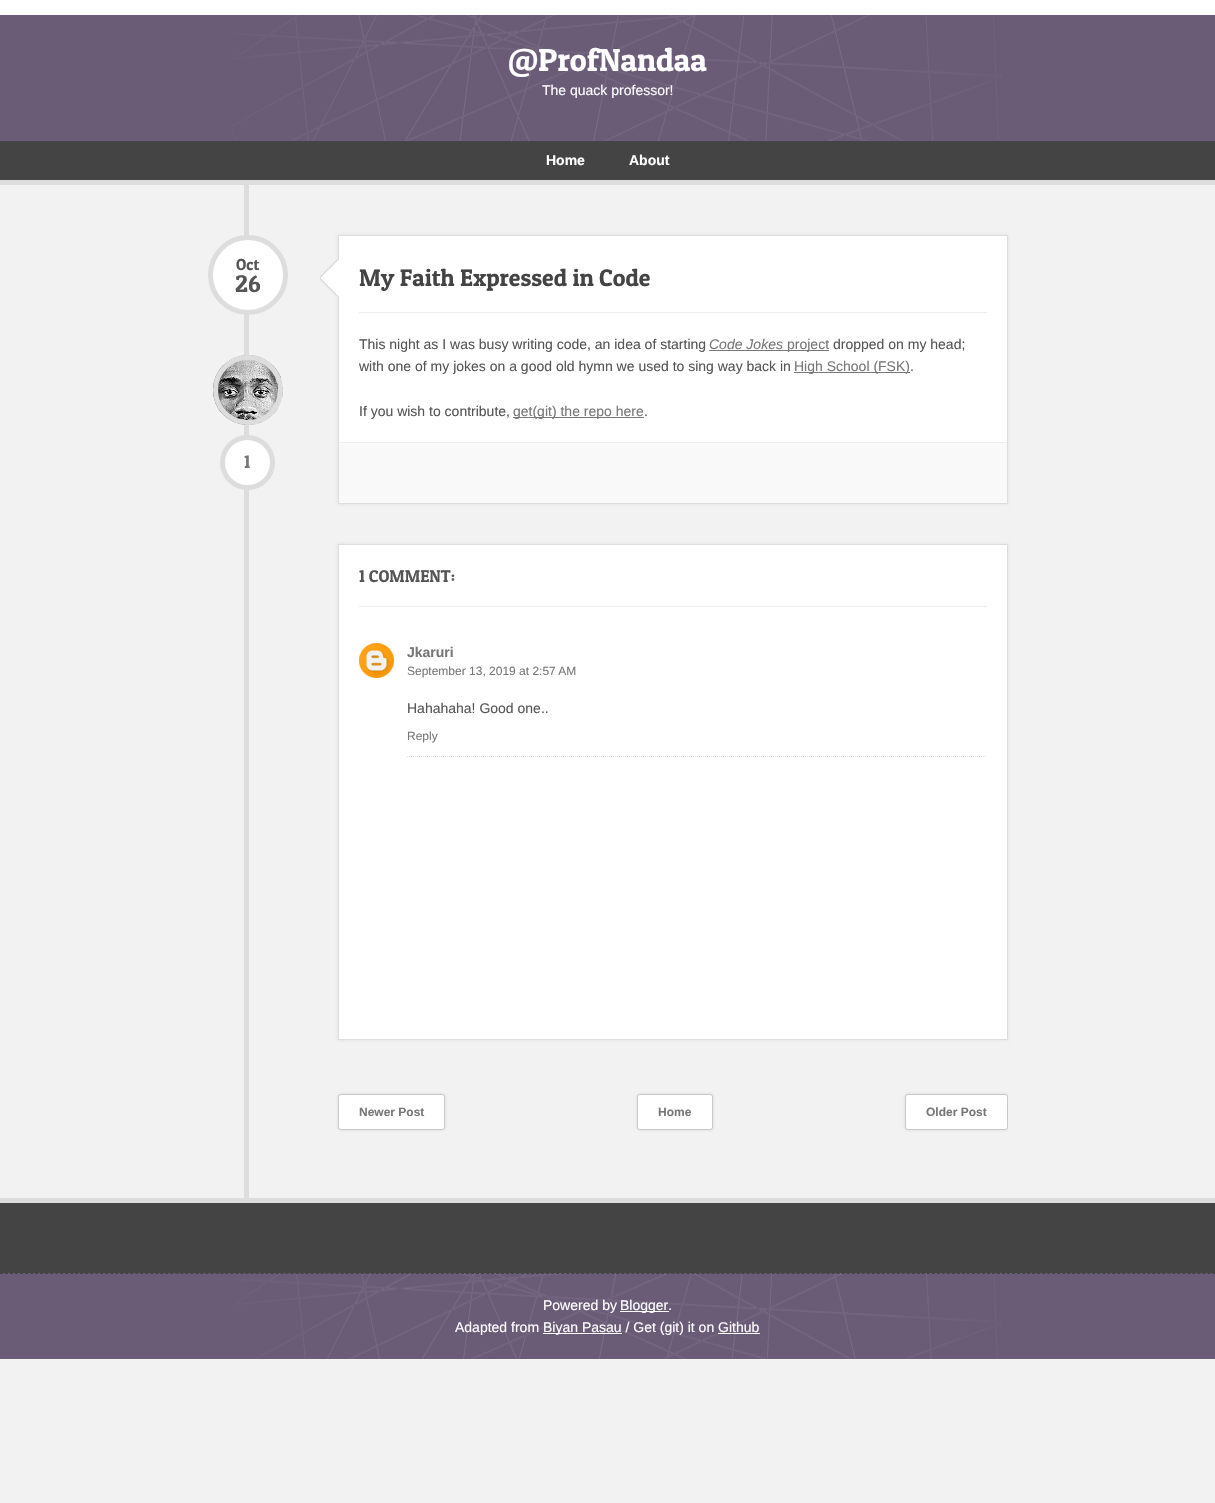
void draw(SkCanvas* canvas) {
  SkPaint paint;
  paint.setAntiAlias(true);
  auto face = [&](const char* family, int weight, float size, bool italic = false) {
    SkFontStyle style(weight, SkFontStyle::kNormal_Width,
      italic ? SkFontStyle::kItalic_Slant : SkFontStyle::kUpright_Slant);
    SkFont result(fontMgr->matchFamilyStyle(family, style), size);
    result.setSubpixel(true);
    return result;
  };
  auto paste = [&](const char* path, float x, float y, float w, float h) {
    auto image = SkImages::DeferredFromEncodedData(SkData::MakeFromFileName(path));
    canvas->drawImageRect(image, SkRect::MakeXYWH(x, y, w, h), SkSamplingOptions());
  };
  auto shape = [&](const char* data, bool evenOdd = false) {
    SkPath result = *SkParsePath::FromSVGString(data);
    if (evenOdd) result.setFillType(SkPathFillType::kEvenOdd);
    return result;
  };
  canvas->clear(0xfff2f2f2);
  paint.setColor(0xffffffff);
  canvas->drawRect(SkRect::MakeXYWH(0, 0, 1215, 15), paint);
  paint.setColor(0xff6a5b77);
  canvas->drawRect(SkRect::MakeXYWH(0, 15, 1215, 126), paint);
  paste("img/1.png", 232, 15, 770, 126);
  {
    const struct { float x, y, w, h; SkColor color; } items[] = {
      {0, 141, 1215, 39, 0xff444444},
      {0, 180, 1215, 5, 0xffdddddd},
      {244, 185, 5, 1013, 0xffdddddd},
    };
    for (auto [x, y, w, h, color] : items) {
      paint.setColor(color);
      canvas->drawRect(SkRect::MakeXYWH(x, y, w, h), paint);
    }
  }
  paint.setMaskFilter(SkMaskFilter::MakeBlur(kNormal_SkBlurStyle, 1.5f));
  canvas->drawRect(SkRect::MakeXYWH(338, 235, 670, 269), paint);
  paint.setMaskFilter(nullptr);
  paint.setColor(0xffffffff);
  canvas->drawRect(SkRect::MakeXYWH(339, 236, 668, 206), paint);
  paint.setStroke(true);
  paint.setStrokeWidth(1);
  paint.setColor(0xffdddddd);
  canvas->drawRect(SkRect::MakeXYWH(338.5f, 235.5f, 669, 268), paint);
  paint.setStroke(false);
  paint.setColor(0xffffffff);
  canvas->drawCircle(248, 275, 37.5f, paint);
  paint.setStroke(true);
  paint.setStrokeWidth(5);
  paint.setColor(0xffdddddd);
  canvas->drawCircle(248, 275, 37.5f, paint);
  paste("img/2.png", 213, 355, 70, 70);
  canvas->drawCircle(248, 390, 32.5f, paint);
  paint.setStroke(false);
  paint.setColor(0xffffffff);
  canvas->drawCircle(247.5f, 462.5f, 25, paint);
  paint.setStroke(true);
  paint.setColor(0xffdddddd);
  canvas->drawCircle(247.5f, 462.5f, 25, paint);
  paste("img/3.png", 320, 260, 19, 36);
  paint.setStroke(false);
  {
    const struct { float x, y, w, h; SkColor color; } items[] = {
      {359, 312, 628, 1, 0xffeeeeee},
      {709, 350, 120, 1, 0xff777777},
      {794, 372, 116, 1, 0xff777777},
      {513, 417, 131, 1, 0xff777777},
      {339, 443, 668, 60, 0xfff9f9f9},
      {339, 442, 668, 1, 0xffeeeeee},
    };
    for (auto [x, y, w, h, color] : items) {
      paint.setColor(color);
      canvas->drawRect(SkRect::MakeXYWH(x, y, w, h), paint);
    }
  }
  paint.setColor(0xffdddddd);
  paint.setMaskFilter(SkMaskFilter::MakeBlur(kNormal_SkBlurStyle, 1.5f));
  canvas->drawRect(SkRect::MakeXYWH(338, 544, 670, 496), paint);
  paint.setMaskFilter(nullptr);
  paint.setColor(0xffffffff);
  canvas->drawRect(SkRect::MakeXYWH(338.5f, 544.5f, 669, 495), paint);
  paint.setStroke(true);
  paint.setStrokeWidth(1);
  paint.setColor(0xffdddddd);
  canvas->drawRect(SkRect::MakeXYWH(338.5f, 544.5f, 669, 495), paint);
  paint.setStroke(false);
  paint.setColor(0xffeeeeee);
  canvas->drawRect(SkRect::MakeXYWH(359, 606, 628, 1), paint);
  paste("img/4.png", 359, 643, 35, 35);
  paint.setStroke(true);
  paint.setColor(0xffdddddd);
  paint.setPathEffect(SkDashPathEffect::Make({{1, 1}}, 0));
  canvas->drawPath(shape("M407 756.5H987"), paint);
  paint.setPathEffect(nullptr);
  paint.setStroke(false);
  paint.setColor(0xffd7d7d7);
  paint.setMaskFilter(SkMaskFilter::MakeBlur(kNormal_SkBlurStyle, 1.5f));
  canvas->drawRoundRect(SkRect::MakeXYWH(338, 1094, 107, 36), 3, 3, paint);
  paint.setMaskFilter(nullptr);
  paint.setColor(0xffffffff);
  canvas->drawRoundRect(SkRect::MakeXYWH(338.5f, 1094.5f, 106, 35), 2.5f, 2.5f, paint);
  paint.setStroke(true);
  paint.setColor(0xffc9c9c9);
  canvas->drawRoundRect(SkRect::MakeXYWH(338.5f, 1094.5f, 106, 35), 2.5f, 2.5f, paint);
  paint.setStroke(false);
  paint.setColor(0xffd7d7d7);
  paint.setMaskFilter(SkMaskFilter::MakeBlur(kNormal_SkBlurStyle, 1.5f));
  canvas->drawRoundRect(SkRect::MakeXYWH(637, 1094, 76, 36), 3, 3, paint);
  paint.setMaskFilter(nullptr);
  paint.setColor(0xffffffff);
  canvas->drawRoundRect(SkRect::MakeXYWH(637.5f, 1094.5f, 75, 35), 2.5f, 2.5f, paint);
  paint.setStroke(true);
  paint.setColor(0xffc9c9c9);
  canvas->drawRoundRect(SkRect::MakeXYWH(637.5f, 1094.5f, 75, 35), 2.5f, 2.5f, paint);
  canvas->save();
  canvas->clipRect(SkRect::MakeXYWH(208, 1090, 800, 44));
  paint.setStroke(false);
  paint.setColor(0xffd7d7d7);
  paint.setMaskFilter(SkMaskFilter::MakeBlur(kNormal_SkBlurStyle, 1.5f));
  canvas->drawRoundRect(SkRect::MakeXYWH(905, 1094, 103, 36), 3, 3, paint);
  paint.setMaskFilter(nullptr);
  canvas->restore();
  paint.setColor(0xffffffff);
  canvas->drawRoundRect(SkRect::MakeXYWH(905.5f, 1094.5f, 102, 35), 2.5f, 2.5f, paint);
  paint.setStroke(true);
  paint.setColor(0xffc9c9c9);
  canvas->drawRoundRect(SkRect::MakeXYWH(905.5f, 1094.5f, 102, 35), 2.5f, 2.5f, paint);
  paint.setStroke(false);
  {
    const struct { float x, y, w, h; SkColor color; } items[] = {
      {0, 1203, 1215, 70, 0xff444444},
      {0, 1198, 1215, 5, 0xffdddddd},
      {0, 1273, 1215, 86, 0xff6a5b77},
    };
    for (auto [x, y, w, h, color] : items) {
      paint.setColor(color);
      canvas->drawRect(SkRect::MakeXYWH(x, y, w, h), paint);
    }
  }
  paste("img/5.png", 236, 1273, 766, 86);
  paint.setStroke(true);
  paint.setColor(0xff444444);
  paint.setPathEffect(SkDashPathEffect::Make({{3, 2.01f}}, 0));
  canvas->drawPath(shape("M0 1273.5H1215"), paint);
  paint.setPathEffect(nullptr);
  paint.setStroke(false);
  {
    const struct { float x, y, w, h; SkColor color; } items[] = {
      {620, 1311, 49, 1, 0xffffffff},
      {543, 1333, 79, 1, 0xffffffff},
      {718, 1333, 42, 1, 0xffffffff},
    };
    for (auto [x, y, w, h, color] : items) {
      paint.setColor(color);
      canvas->drawRect(SkRect::MakeXYWH(x, y, w, h), paint);
    }
  }
  auto f0 = face("Patua One", 400, 32);
  canvas->drawString("@ProfNandaa", 508, 71, f0, paint);
  auto f1 = face("Liberation Sans", 400, 14);
  canvas->drawString("The quack professor!", 542, 95, f1, paint);
  auto f2 = face("Liberation Sans", 700, 14);
  canvas->drawString("Home", 546, 165, f2, paint);
  canvas->drawString("About", 629, 165, f2, paint);
  auto f3 = face("Patua One", 400, 16);
  paint.setColor(0xff555555);
  canvas->drawString("Oct", 236, 270, f3, paint);
  auto f4 = face("Patua One", 400, 24);
  canvas->drawString("26", 235, 292, f4, paint);
  auto f5 = face("Patua One", 400, 18);
  paint.setColor(0xff777777);
  canvas->drawString("1", 244, 468, f5, paint);
  paint.setColor(0xff444444);
  canvas->drawString("My Faith Expressed in Code", 359, 286, f4, paint);
  paint.setColor(0xff555555);
  canvas->drawString("This night as I was busy writing code, an idea of starting", 359, 349, f1, paint);
  auto f6 = face("Liberation Sans", 400, 14, true);
  paint.setColor(0xff777777);
  canvas->drawString("Code Jokes", 709, 349, f6, paint);
  canvas->drawString("project", 787, 349, f1, paint);
  paint.setColor(0xff555555);
  canvas->drawString("dropped on my head;", 833, 349, f1, paint);
  canvas->drawString("with one of my jokes on a good old hymn we used to sing way back in", 359, 371, f1, paint);
  paint.setColor(0xff777777);
  canvas->drawString("High School (FSK)", 794, 371, f1, paint);
  paint.setColor(0xff555555);
  canvas->drawString(".", 910, 371, f1, paint);
  canvas->drawString("If you wish to contribute,", 359, 416, f1, paint);
  paint.setColor(0xff777777);
  canvas->drawString("get(git) the repo here", 513, 416, f1, paint);
  paint.setColor(0xff555555);
  canvas->drawString(".", 644, 416, f1, paint);
  auto f7 = face("Patua One", 400, 17);
  canvas->drawString("1 COMMENT:", 359, 582, f7, paint);
  paint.setColor(0xff777777);
  canvas->drawString("Jkaruri", 407, 657, f2, paint);
  auto f8 = face("Liberation Sans", 400, 12);
  canvas->drawString("September 13, 2019 at 2:57 AM", 407, 675, f8, paint);
  paint.setColor(0xff555555);
  canvas->drawString("Hahahaha! Good one..", 407, 713, f1, paint);
  paint.setColor(0xff777777);
  canvas->drawString("Reply", 407, 740, f8, paint);
  auto f9 = face("Liberation Sans", 700, 12);
  {
    const struct { const char* s; float x, y; } items[] = {
      {"Newer Post", 359, 1116},
      {"Home", 658, 1116},
      {"Older Post", 926, 1116},
    };
    for (auto [s, x, y] : items) {
      canvas->drawString(s, x, y, f9, paint);
    }
  }
  paint.setColor(0xffffffff);
  {
    const struct { const char* s; float x, y; } items[] = {
      {"Powered by", 543, 1310},
      {"Blogger.", 620, 1310},
      {"Adapted from", 455, 1332},
      {"Biyan Pasau / Get (git) it on Github", 543, 1332},
    };
    for (auto [s, x, y] : items) {
      canvas->drawString(s, x, y, f1, paint);
    }
  }
}
